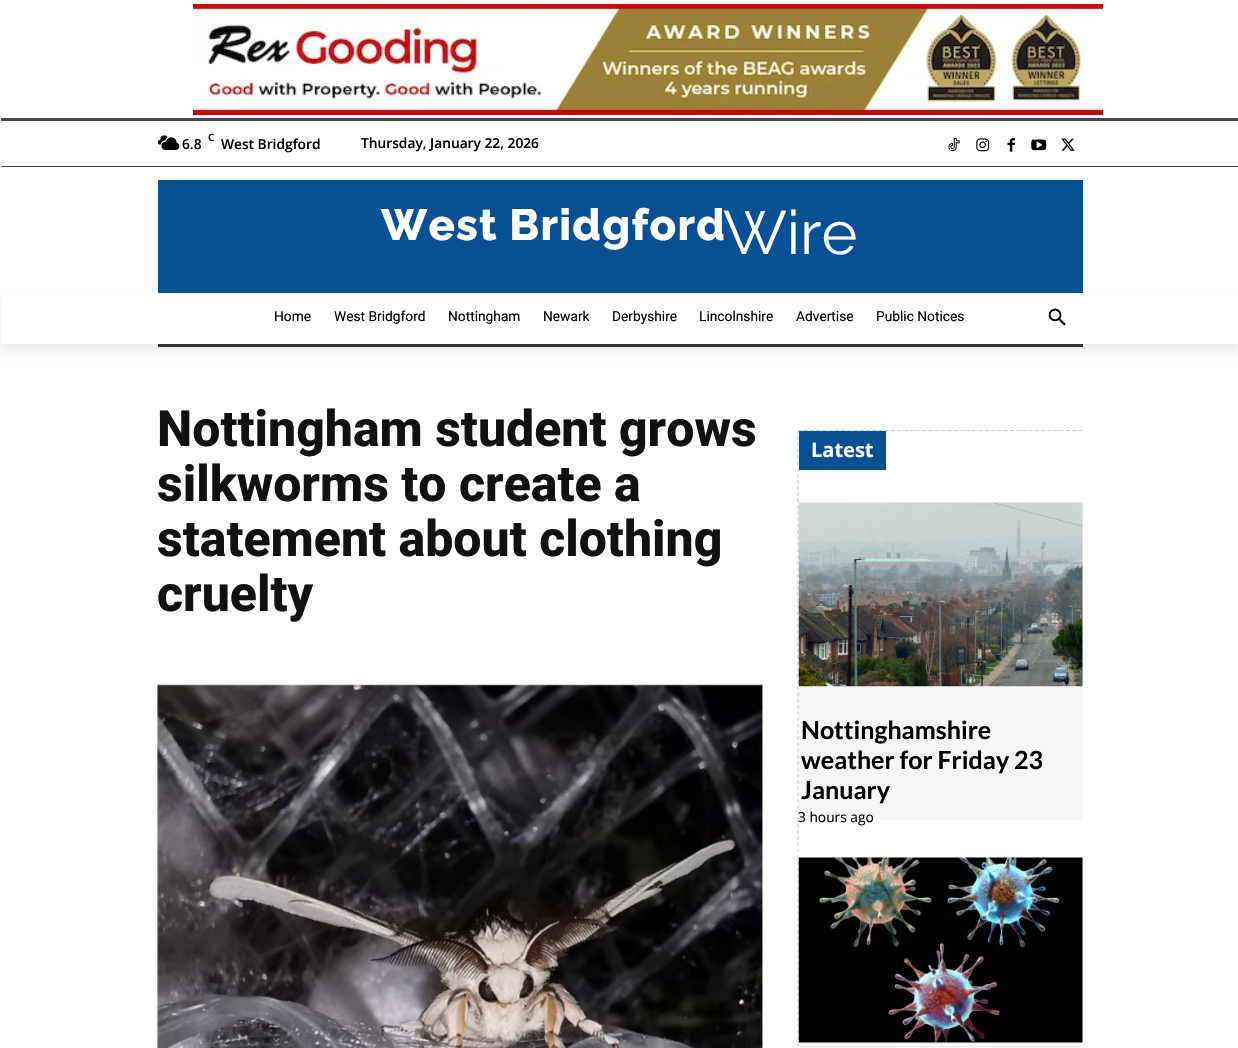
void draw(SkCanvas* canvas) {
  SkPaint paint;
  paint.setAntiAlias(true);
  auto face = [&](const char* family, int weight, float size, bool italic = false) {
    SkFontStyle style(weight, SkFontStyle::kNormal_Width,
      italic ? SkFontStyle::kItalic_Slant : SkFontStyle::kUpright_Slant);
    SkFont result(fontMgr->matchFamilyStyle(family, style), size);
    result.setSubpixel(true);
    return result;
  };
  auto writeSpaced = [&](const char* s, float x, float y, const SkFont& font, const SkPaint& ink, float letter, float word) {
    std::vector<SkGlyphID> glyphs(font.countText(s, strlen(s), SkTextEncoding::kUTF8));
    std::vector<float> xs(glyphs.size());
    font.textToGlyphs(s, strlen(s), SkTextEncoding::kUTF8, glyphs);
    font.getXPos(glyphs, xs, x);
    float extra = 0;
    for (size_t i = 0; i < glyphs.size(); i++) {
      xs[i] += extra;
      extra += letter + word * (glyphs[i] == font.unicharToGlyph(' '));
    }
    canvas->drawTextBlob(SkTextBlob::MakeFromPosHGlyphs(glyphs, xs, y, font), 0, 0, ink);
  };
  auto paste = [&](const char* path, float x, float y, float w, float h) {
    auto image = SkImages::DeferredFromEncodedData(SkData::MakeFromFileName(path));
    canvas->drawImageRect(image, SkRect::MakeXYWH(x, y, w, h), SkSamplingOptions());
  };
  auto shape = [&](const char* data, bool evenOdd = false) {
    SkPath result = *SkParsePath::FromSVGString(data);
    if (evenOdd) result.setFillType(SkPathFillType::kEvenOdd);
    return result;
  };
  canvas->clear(0xffffffff);
  paste("img/1.png", 193, 4, 910, 111);
  paint.setColor(0xff494949);
  canvas->drawRect(SkRect::MakeXYWH(1, 118, 1237, 3), paint);
  canvas->drawRect(SkRect::MakeXYWH(1, 166, 1237, 1), paint);
  paste("img/2.png", 158, 135, 22, 15);
  paste("img/3.png", 948, 138, 12, 14);
  paste("img/4.png", 976, 138, 14, 14);
  paste("img/5.png", 1007, 138, 8, 14);
  paste("img/6.png", 1031, 139, 16, 12);
  paste("img/7.png", 1061, 138, 14, 13);
  paint.setColor(0xff075094);
  canvas->drawRect(SkRect::MakeXYWH(158, 180, 925, 113), paint);
  paint.setColor(0xff353535);
  canvas->drawRect(SkRect::MakeXYWH(158, 344, 925, 3), paint);
  canvas->save();
  canvas->clipPath(shape("M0 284H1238V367H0ZM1 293H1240V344H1Z", true), true);
  paint.setColor(0x14000000);
  paint.setMaskFilter(SkMaskFilter::MakeBlur(kNormal_SkBlurStyle, 5));
  canvas->drawRect(SkRect::MakeXYWH(1, 300, 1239, 51), paint);
  paint.setMaskFilter(nullptr);
  canvas->restore();
  paste("img/8.png", 1048, 308, 18, 18);
  paste("img/9.png", 157, 684, 606, 364);
  paint.setStroke(true);
  paint.setStrokeWidth(1.2f);
  paint.setColor(0xffcccccc);
  paint.setPathEffect(SkDashPathEffect::Make({{3.75f, 2.5f}}, 0));
  canvas->drawPath(shape("M797.5 430.5H1082.5"), paint);
  paint.setPathEffect(nullptr);
  paint.setPathEffect(SkDashPathEffect::Make({{3.75f, 2.5f}}, 0));
  canvas->drawPath(shape("M798 430V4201"), paint);
  paint.setPathEffect(nullptr);
  paint.setStroke(false);
  paint.setColor(0xff075094);
  canvas->drawRect(SkRect::MakeXYWH(799, 431, 87, 39), paint);
  paint.setColor(0xfff6f6f6);
  canvas->drawRect(SkRect::MakeXYWH(799, 503, 284, 317), paint);
  paste("img/10.png", 798, 502, 285, 185);
  canvas->drawRect(SkRect::MakeXYWH(799, 858, 284, 190), paint);
  paste("img/11.png", 798, 857, 285, 186);
  auto f0 = face("Open Sans", 600, 10);
  paint.setColor(0xff000000);
  canvas->drawString("C", 208, 141, f0, paint);
  auto f1 = face("Open Sans", 600, 13.75f);
  {
    const struct { const char* s; float x, y; } items[] = {
      {"6.8", 182, 149},
      {"West Bridgford", 221, 149},
      {"Thursday, January 22, 2026", 361, 148},
    };
    for (auto [s, x, y] : items) {
      canvas->drawString(s, x, y, f1, paint);
    }
  }
  auto f2 = face("Raleway", 800, 43.75f);
  paint.setColor(0xffffffff);
  writeSpaced("West Bridgford", 381, 240, f2, paint, 1.25f, 0);
  auto f3 = face("Raleway", 400, 61);
  canvas->drawString("Wire", 723, 254, f3, paint);
  auto f4 = face("Roboto", 400, 13.75f);
  paint.setColor(0xff000000);
  {
    const struct { const char* s; float x, y; } items[] = {
      {"Home", 274, 321},
      {"West Bridgford", 334, 321},
      {"Nottingham", 448, 321},
      {"Newark", 543, 321},
      {"Derbyshire", 612, 321},
      {"Lincolnshire", 699, 321},
      {"Advertise", 796, 321},
      {"Public Notices", 876, 321},
    };
    for (auto [s, x, y] : items) {
      canvas->drawString(s, x, y, f4, paint);
    }
  }
  auto f5 = face("Roboto", 800, 50);
  paint.setColor(0xff111111);
  {
    const struct { const char* s; float x, y; } items[] = {
      {"Nottingham student grows", 157, 446},
      {"silkworms to create a", 157, 501},
      {"statement about clothing", 157, 556},
      {"cruelty", 157, 611},
    };
    for (auto [s, x, y] : items) {
      canvas->drawString(s, x, y, f5, paint);
    }
  }
  auto f6 = face("Open Sans", 700, 20);
  paint.setColor(0xffffffff);
  canvas->drawString("Latest", 811, 457, f6, paint);
  auto f7 = face("Lato", 700, 25);
  paint.setColor(0xff000000);
  {
    const struct { const char* s; float x, y; } items[] = {
      {"Nottinghamshire", 801, 739},
      {"weather for Friday 23", 801, 769},
      {"January", 801, 799},
    };
    for (auto [s, x, y] : items) {
      canvas->drawString(s, x, y, f7, paint);
    }
  }
  auto f8 = face("Open Sans", 400, 13.75f);
  canvas->drawString("3 hours ago", 798, 822, f8, paint);
}
